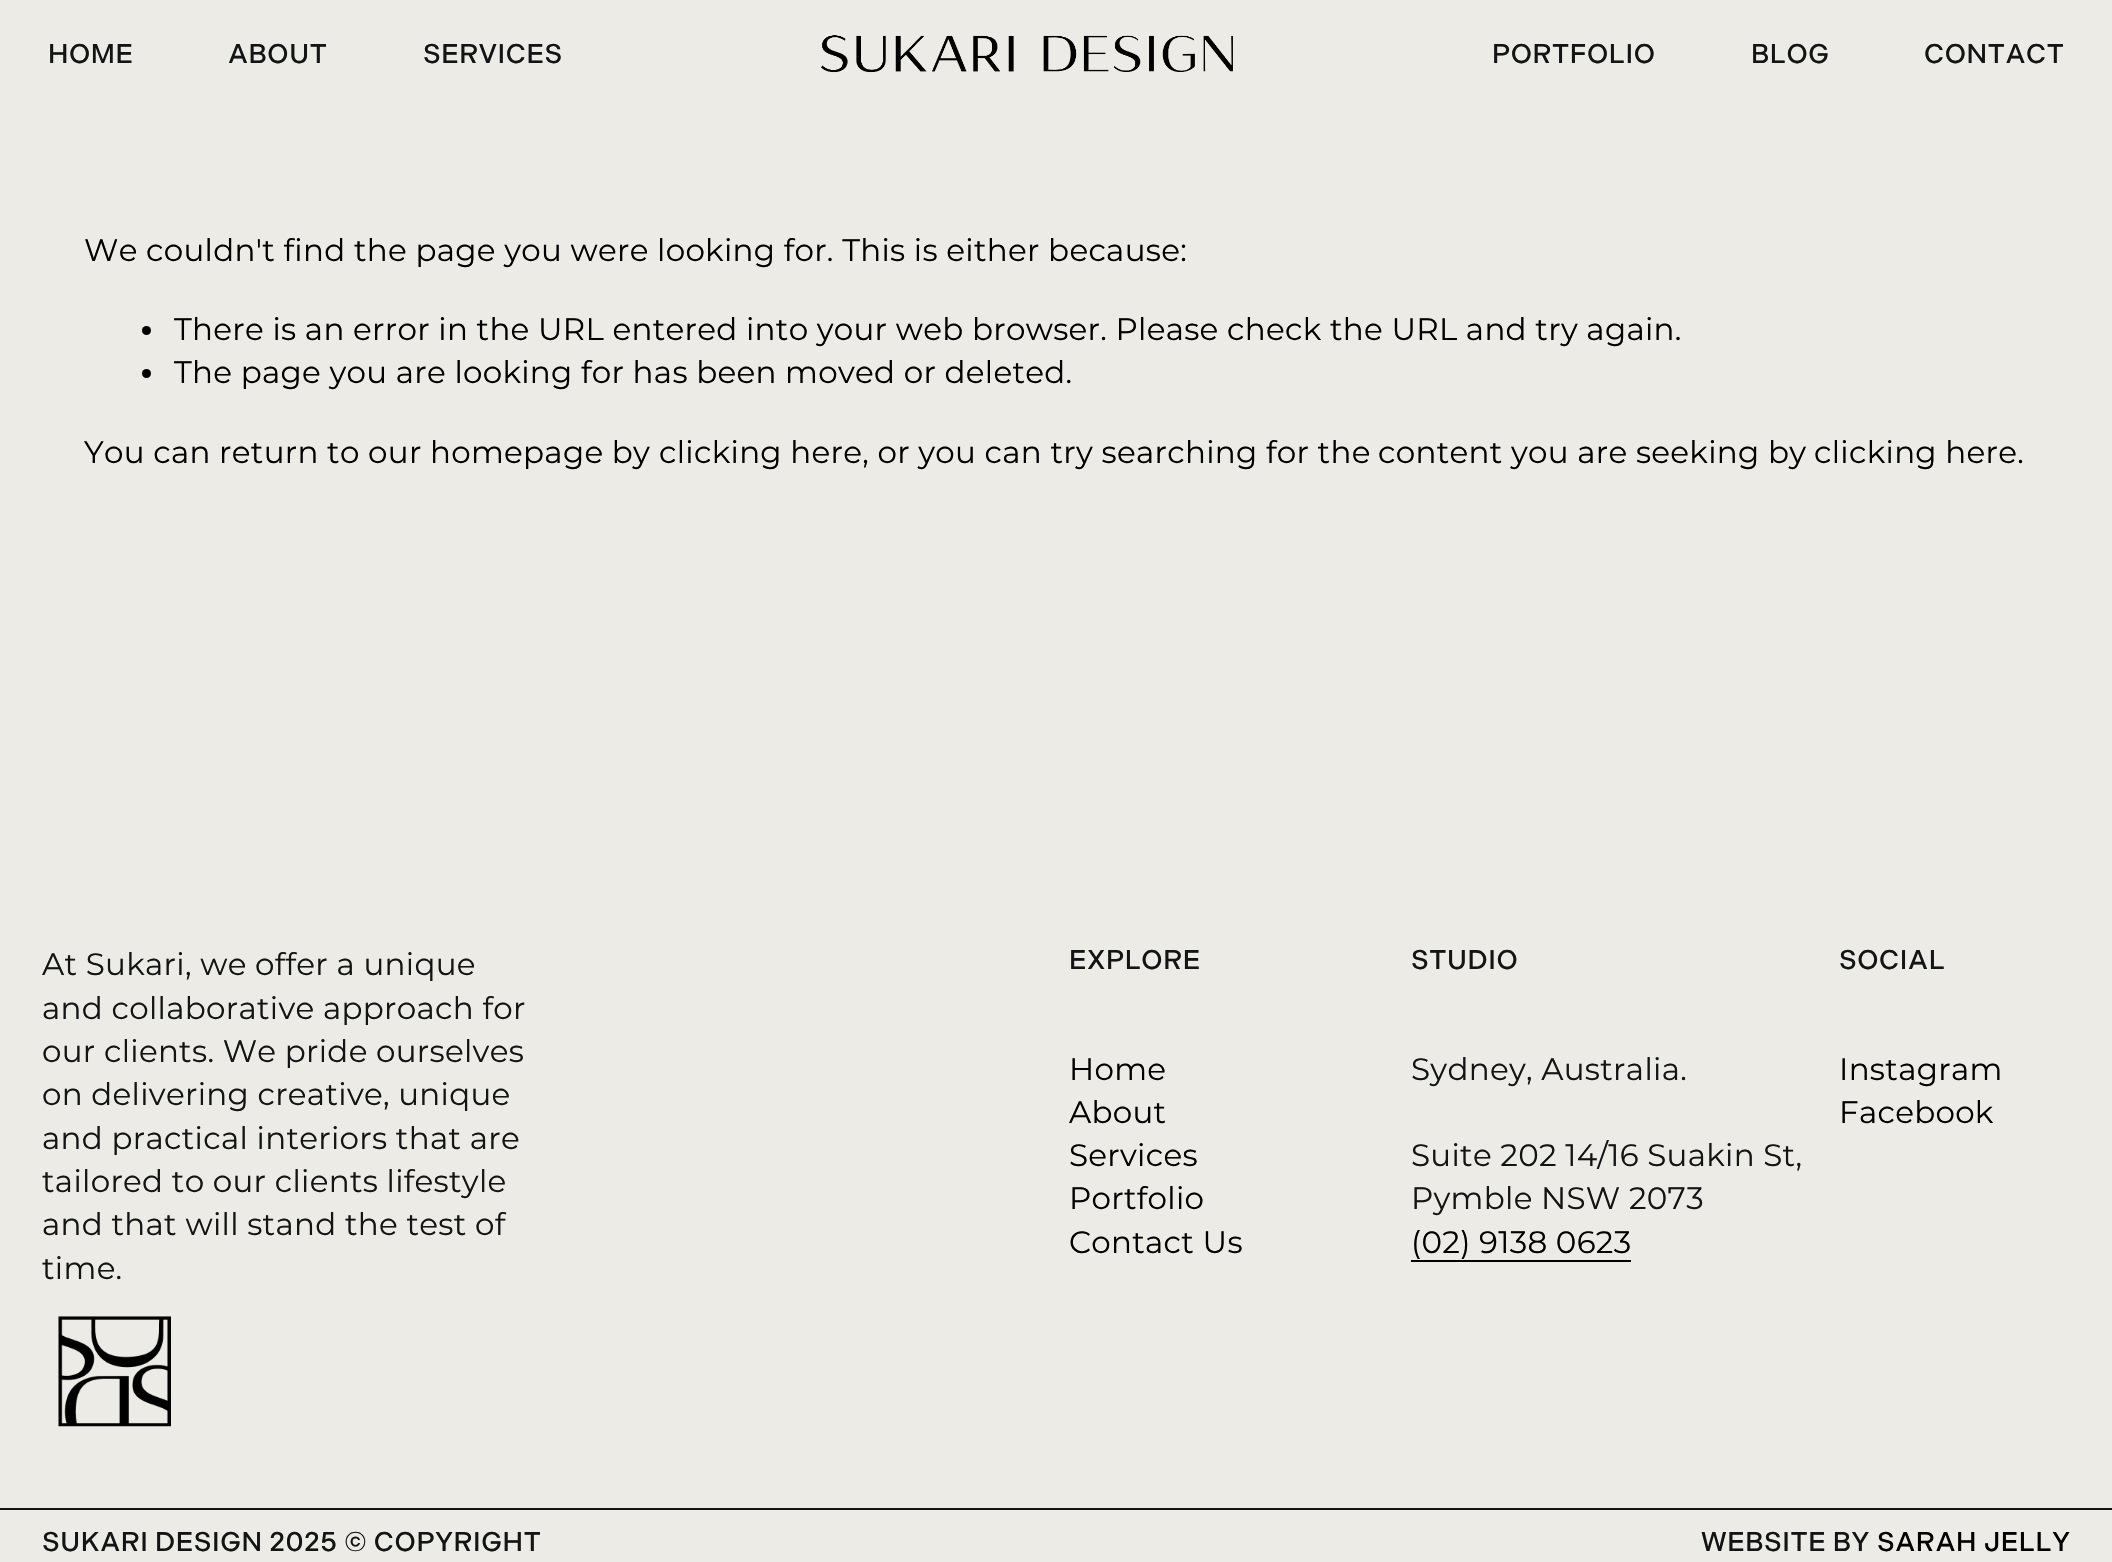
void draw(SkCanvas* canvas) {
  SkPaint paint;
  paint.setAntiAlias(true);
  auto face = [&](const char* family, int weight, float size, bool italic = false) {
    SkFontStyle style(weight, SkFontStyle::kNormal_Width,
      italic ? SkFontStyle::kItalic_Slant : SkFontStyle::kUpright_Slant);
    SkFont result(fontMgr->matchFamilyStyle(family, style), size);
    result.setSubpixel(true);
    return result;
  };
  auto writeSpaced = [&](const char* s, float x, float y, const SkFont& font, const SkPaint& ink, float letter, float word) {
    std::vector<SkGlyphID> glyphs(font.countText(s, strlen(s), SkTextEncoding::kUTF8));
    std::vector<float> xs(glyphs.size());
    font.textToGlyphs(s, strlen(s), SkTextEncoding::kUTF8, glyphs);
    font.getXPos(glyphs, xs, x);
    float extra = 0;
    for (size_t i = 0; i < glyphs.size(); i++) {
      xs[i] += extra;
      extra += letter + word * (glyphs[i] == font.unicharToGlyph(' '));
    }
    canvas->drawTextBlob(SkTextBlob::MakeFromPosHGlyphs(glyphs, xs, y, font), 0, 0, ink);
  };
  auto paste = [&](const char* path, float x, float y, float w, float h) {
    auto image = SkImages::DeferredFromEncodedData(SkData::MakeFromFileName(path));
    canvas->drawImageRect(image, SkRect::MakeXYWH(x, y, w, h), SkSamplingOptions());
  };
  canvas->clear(0xffedebe5);
  paste("img/1.png", 821, 35, 412, 38);
  paint.setColor(0xff000000);
  canvas->drawCircle(146.5f, 330.5f, 4.5f, paint);
  canvas->drawCircle(146.5f, 373.5f, 4.5f, paint);
  canvas->drawRect(SkRect::MakeXYWH(1411, 1260, 220, 2), paint);
  paste("img/2.png", 58, 1316, 113, 111);
  paint.setColor(0xff131415);
  canvas->drawRect(SkRect::MakeXYWH(0, 1508, 2112, 2), paint);
  auto f0 = face("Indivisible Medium", 500, 27);
  {
    const struct { const char* s; float x, y; } items[] = {
      {"HOME", 48, 63},
      {"ABOUT", 228, 63},
      {"SERVICES", 423, 63},
      {"PORTFOLIO", 1492, 63},
      {"BLOG", 1751, 63},
      {"CONTACT", 1924, 63},
    };
    for (auto [s, x, y] : items) {
      writeSpaced(s, x, y, f0, paint, 0.6f, 0);
    }
  }
  auto f1 = face("Montserrat", 400, 30.95f);
  paint.setColor(0xff000000);
  {
    const struct { const char* s; float x, y; } items[] = {
      {"We couldn't find the page you were looking for. This is either because:", 84, 261},
      {"There is an error in the URL entered into your web browser. Please check the URL and try again.", 174, 340},
      {"The page you are looking for has been moved or deleted.", 174, 383},
      {"You can return to our homepage by", 84, 463},
      {"clicking here, or you can try searching for the", 659, 463},
      {"content you are seeking by", 1378, 463},
      {"clicking here.", 1814, 463},
    };
    for (auto [s, x, y] : items) {
      writeSpaced(s, x, y, f1, paint, 0.3f, 0);
    }
  }
  paint.setColor(0xff131415);
  {
    const struct { const char* s; float x, y; } items[] = {
      {"At Sukari, we offer a unique", 42, 975},
      {"and collaborative approach for", 42, 1019},
      {"our clients. We pride ourselves", 42, 1062},
      {"on delivering creative, unique", 42, 1105},
      {"and practical interiors that are", 42, 1149},
      {"tailored to our clients lifestyle", 42, 1192},
      {"and that will stand the test of", 42, 1235},
      {"time.", 42, 1279},
    };
    for (auto [s, x, y] : items) {
      writeSpaced(s, x, y, f1, paint, 0.3f, 0);
    }
  }
  writeSpaced("EXPLORE", 1069, 969, f0, paint, 0.6f, 0);
  paint.setColor(0xff000000);
  {
    const struct { const char* s; float x, y; } items[] = {
      {"Home", 1069, 1080},
      {"About", 1069, 1123},
      {"Services", 1069, 1166},
      {"Portfolio", 1069, 1209},
      {"Contact Us", 1069, 1253},
    };
    for (auto [s, x, y] : items) {
      writeSpaced(s, x, y, f1, paint, 0.3f, 0);
    }
  }
  paint.setColor(0xff131415);
  writeSpaced("STUDIO", 1411, 969, f0, paint, 0.6f, 0);
  {
    const struct { const char* s; float x, y; } items[] = {
      {"Sydney, Australia.", 1411, 1080},
      {"Suite 202 14/16 Suakin St,", 1411, 1166},
      {"Pymble NSW 2073", 1411, 1209},
    };
    for (auto [s, x, y] : items) {
      writeSpaced(s, x, y, f1, paint, 0.3f, 0);
    }
  }
  paint.setColor(0xff000000);
  writeSpaced("(02) 9138 0623", 1411, 1253, f1, paint, 0.3f, 0);
  paint.setColor(0xff131415);
  writeSpaced("SOCIAL", 1839, 969, f0, paint, 0.6f, 0);
  paint.setColor(0xff000000);
  writeSpaced("Instagram", 1839, 1080, f1, paint, 0.3f, 0);
  writeSpaced("Facebook", 1839, 1123, f1, paint, 0.3f, 0);
  paint.setColor(0xff131415);
  writeSpaced("SUKARI DESIGN 2025 © COPYRIGHT", 42, 1551, f0, paint, 0.6f, 0);
  writeSpaced("WEBSITE BY", 1701, 1551, f0, paint, 0.6f, 0);
  paint.setColor(0xff000000);
  writeSpaced("SARAH JELLY", 1877, 1551, f0, paint, 0.6f, 0);
}
